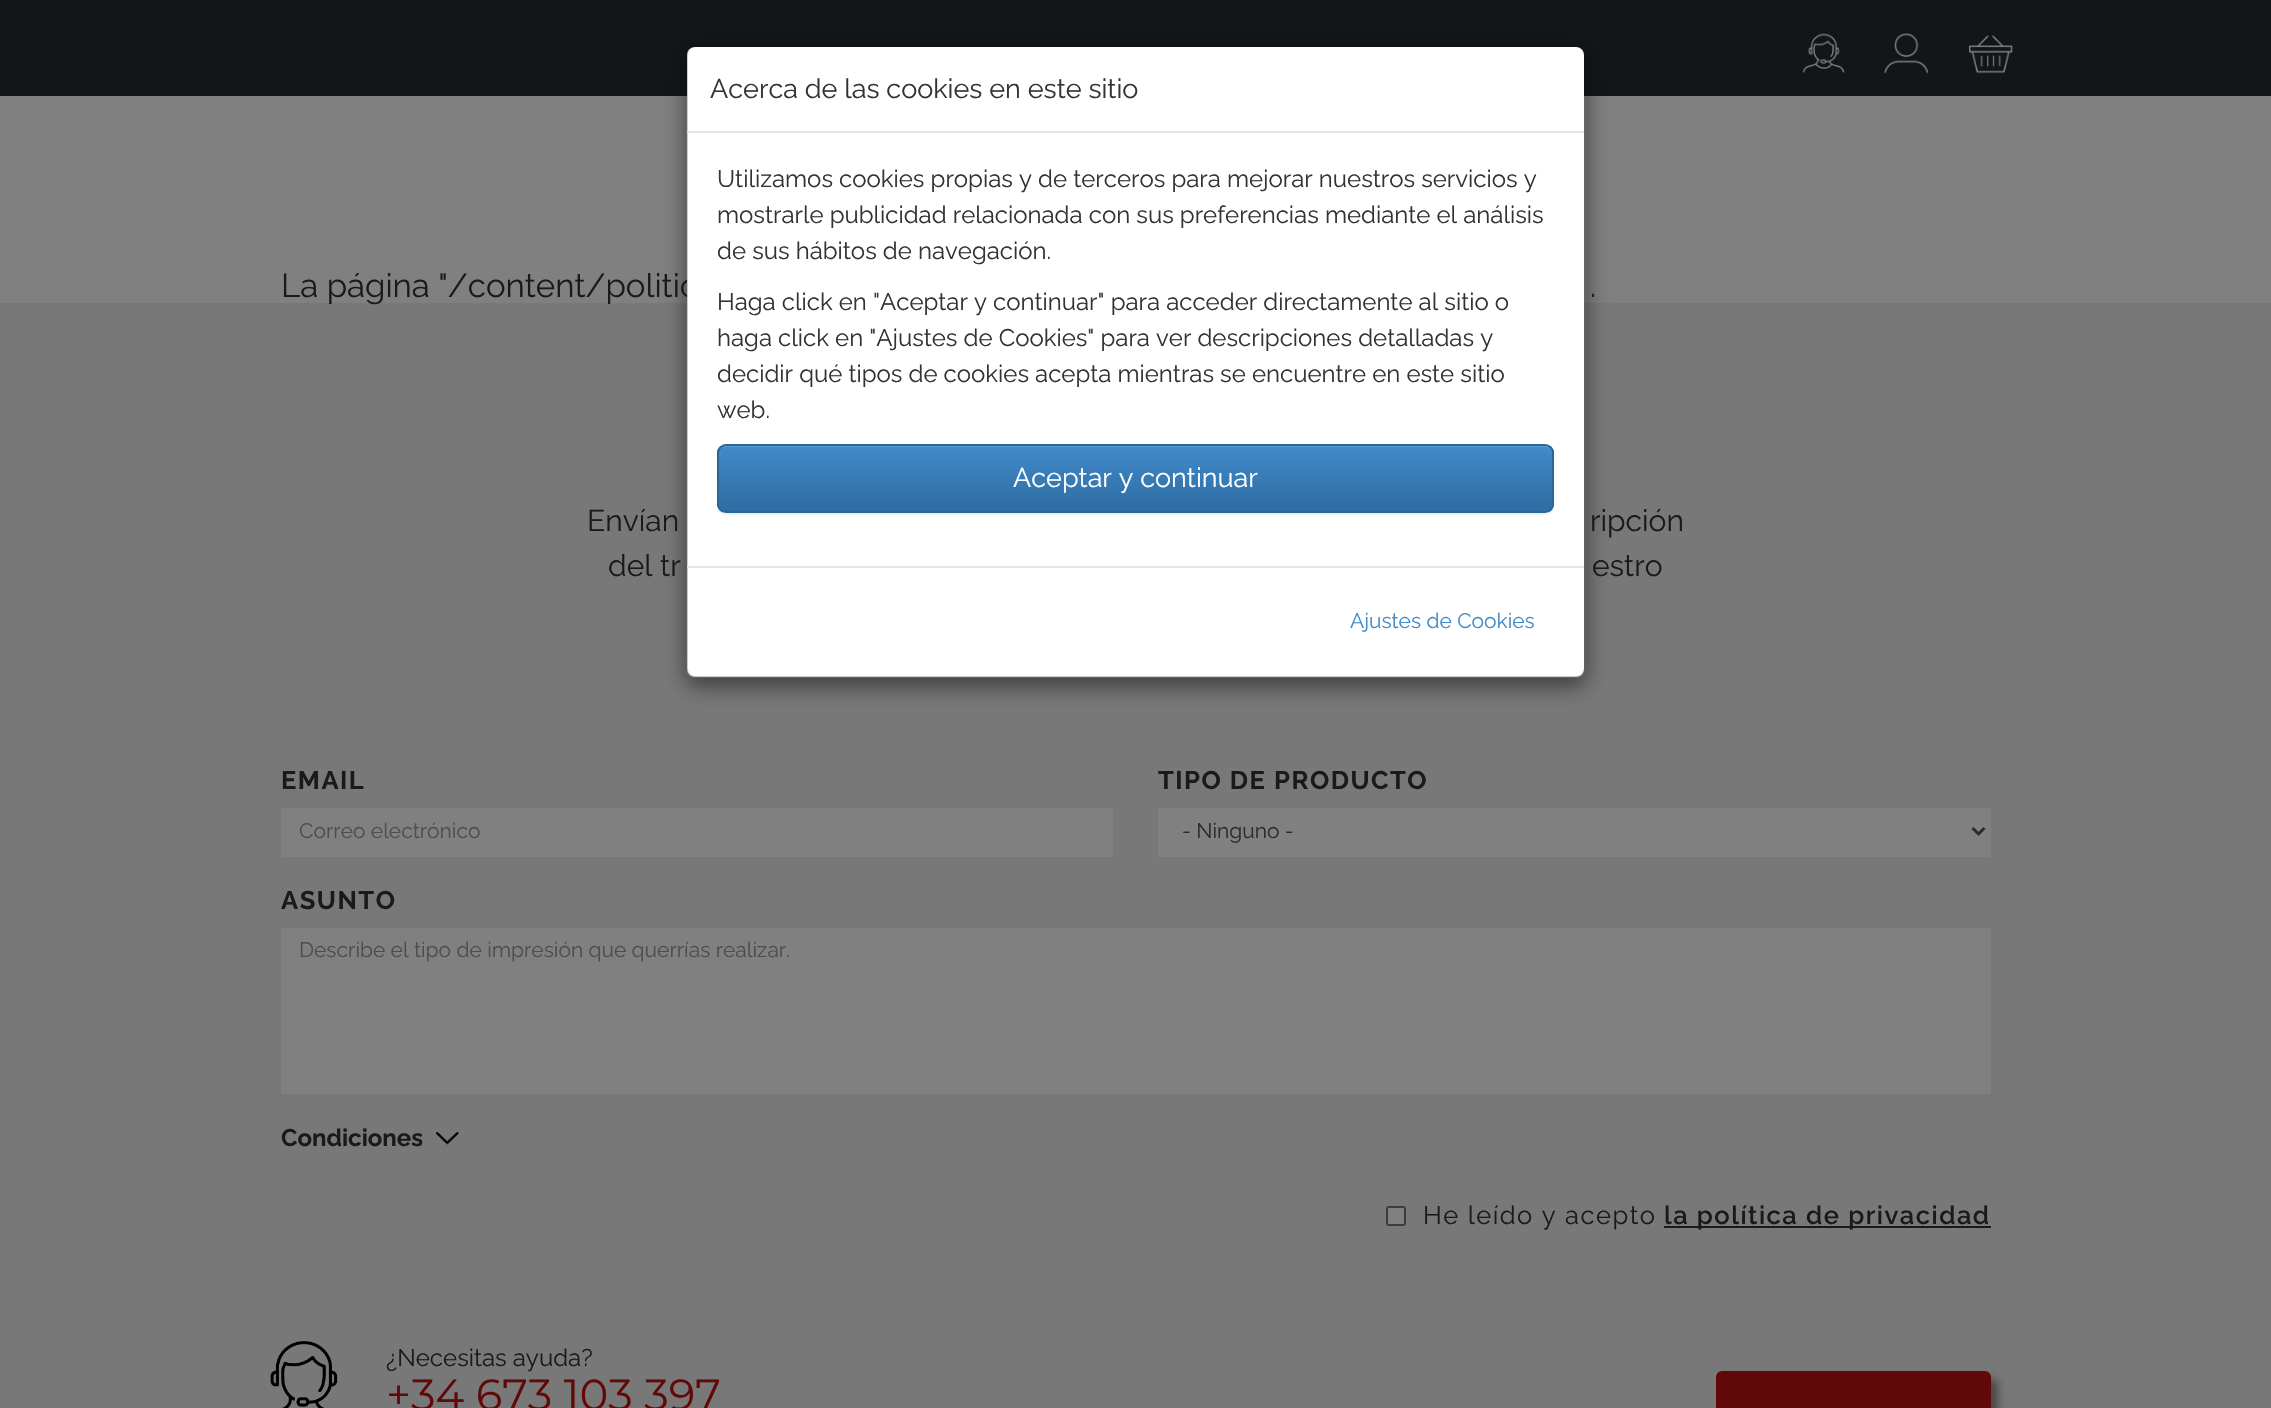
void draw(SkCanvas* canvas) {
  SkPaint paint;
  paint.setAntiAlias(true);
  auto face = [&](const char* family, int weight, float size, bool italic = false) {
    SkFontStyle style(weight, SkFontStyle::kNormal_Width,
      italic ? SkFontStyle::kItalic_Slant : SkFontStyle::kUpright_Slant);
    SkFont result(fontMgr->matchFamilyStyle(family, style), size);
    result.setSubpixel(true);
    return result;
  };
  auto writeSpaced = [&](const char* s, float x, float y, const SkFont& font, const SkPaint& ink, float letter, float word) {
    std::vector<SkGlyphID> glyphs(font.countText(s, strlen(s), SkTextEncoding::kUTF8));
    std::vector<float> xs(glyphs.size());
    font.textToGlyphs(s, strlen(s), SkTextEncoding::kUTF8, glyphs);
    font.getXPos(glyphs, xs, x);
    float extra = 0;
    for (size_t i = 0; i < glyphs.size(); i++) {
      xs[i] += extra;
      extra += letter + word * (glyphs[i] == font.unicharToGlyph(' '));
    }
    canvas->drawTextBlob(SkTextBlob::MakeFromPosHGlyphs(glyphs, xs, y, font), 0, 0, ink);
  };
  auto paste = [&](const char* path, float x, float y, float w, float h) {
    auto image = SkImages::DeferredFromEncodedData(SkData::MakeFromFileName(path));
    canvas->drawImageRect(image, SkRect::MakeXYWH(x, y, w, h), SkSamplingOptions());
  };
  auto shape = [&](const char* data, bool evenOdd = false) {
    SkPath result = *SkParsePath::FromSVGString(data);
    if (evenOdd) result.setFillType(SkPathFillType::kEvenOdd);
    return result;
  };
  canvas->clear(0xff808080);
  paint.setColor(0xff131618);
  canvas->drawRect(SkRect::MakeXYWH(0, 0, 2271, 96), paint);
  paste("img/1.png", 1802, 33, 43, 41);
  paste("img/2.png", 1884, 33, 45, 41);
  paste("img/3.png", 1969, 35, 44, 39);
  paint.setColor(0xff787878);
  canvas->drawRect(SkRect::MakeXYWH(0, 303, 2271, 1105), paint);
  canvas->save();
  canvas->clipPath(shape("M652 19H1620V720H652ZM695 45H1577C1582 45 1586 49 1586 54V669C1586 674 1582 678 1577 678H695C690 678 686 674 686 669V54C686 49 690 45 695 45Z", true), true);
  paint.setColor(0x80000000);
  paint.setMaskFilter(SkMaskFilter::MakeBlur(kNormal_SkBlurStyle, 11));
  canvas->drawRoundRect(SkRect::MakeXYWH(686, 53, 900, 633), 9, 9, paint);
  paint.setMaskFilter(nullptr);
  canvas->restore();
  paint.setColor(0xff808080);
  canvas->drawRect(SkRect::MakeXYWH(281, 808, 832, 49), paint);
  canvas->drawRect(SkRect::MakeXYWH(1158, 808, 833, 49), paint);
  paint.setStroke(true);
  paint.setStrokeWidth(3);
  paint.setColor(0xff2b2b2b);
  canvas->drawPath(shape("M1972.5 828L1978.5 834L1984.5 828"), paint);
  paint.setStroke(false);
  paint.setColor(0xff808080);
  canvas->drawRect(SkRect::MakeXYWH(281, 928, 1710, 166), paint);
  paste("img/4.png", 436, 1132, 23, 13);
  canvas->drawRoundRect(SkRect::MakeXYWH(1387, 1207, 18, 18), 2, 2, paint);
  paint.setStroke(true);
  paint.setStrokeWidth(2);
  paint.setColor(0xff3b3b3b);
  canvas->drawRoundRect(SkRect::MakeXYWH(1387, 1207, 18, 18), 2, 2, paint);
  paint.setStroke(false);
  paint.setColor(0xff1a1a1a);
  canvas->drawRect(SkRect::MakeXYWH(1664, 1226, 327, 2), paint);
  paint.setColor(0x66000000);
  paint.setMaskFilter(SkMaskFilter::MakeBlur(kNormal_SkBlurStyle, 4));
  canvas->drawRoundRect(SkRect::MakeXYWH(1724, 1379, 274, 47), 6, 6, paint);
  paint.setMaskFilter(nullptr);
  paint.setColor(0xff610808);
  canvas->drawRoundRect(SkRect::MakeXYWH(1716, 1371, 275, 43), 6, 6, paint);
  paste("img/5.png", 270, 1341, 68, 67);
  auto f0 = face("Raleway", 400, 33);
  paint.setColor(0xff1a1a1a);
  canvas->drawString("La página \"/content/politic", 281, 297, f0, paint);
  paint.setColor(0xffffffff);
  canvas->drawRoundRect(SkRect::MakeXYWH(687, 47, 897, 630), 8, 8, paint);
  paint.setStroke(true);
  paint.setColor(0x33000000);
  canvas->drawRoundRect(SkRect::MakeXYWH(687, 46, 898, 631), 8, 8, paint);
  paint.setStroke(false);
  paint.setColor(0x12000000);
  paint.setMaskFilter(SkMaskFilter::MakeBlur(kNormal_SkBlurStyle, 1));
  canvas->drawRoundRect(SkRect::MakeXYWH(717, 446, 837, 69), 9, 9, paint);
  paint.setMaskFilter(nullptr);
  canvas->save();
  canvas->clipPath(shape("M726 444H1545C1550 444 1554 448 1554 453V504C1554 509 1550 513 1545 513H726C721 513 717 509 717 504V453C717 448 721 444 726 444Z"), true);
  {
    const SkColor colors[] = {0xff428bca, 0xff2d6ca2};
    const float stops[] = {0, 1};
    const SkPoint ends[] = {{1136, 445}, {1136, 512}};
    paint.setShader(SkGradientShader::MakeLinear(ends, colors, stops, 2, SkTileMode::kClamp));
    paint.setAlpha(255);
  }
  canvas->drawRect(SkRect::MakeXYWH(717, 446, 837, 66), paint);
  canvas->restore();
  paint.setShader(nullptr);
  paint.setColor(0x26ffffff);
  canvas->drawPath(shape("M726 447H1545C1549 447 1552 450 1552 454V506V509C1552 507 1553 506 1553 504V454C1553 450 1549 446 1545 446H727C725 446 723 447 721 448C723 448 724 447 726 447Z"), paint);
  paint.setStroke(true);
  paint.setColor(0xff2b669a);
  canvas->drawRoundRect(SkRect::MakeXYWH(718, 445, 835, 67), 8, 8, paint);
  auto f1 = face("Raleway", 400, 27);
  paint.setStroke(false);
  paint.setColor(0xffffffff);
  canvas->drawString("Aceptar y continuar", 1013, 487, f1, paint);
  auto f2 = face("Raleway", 400, 24);
  paint.setColor(0xff333333);
  {
    const struct { const char* s; float x, y; } items[] = {
      {"web.", 717, 418},
      {"decidir qué tipos de cookies acepta mientras se encuentre en este sitio", 717, 382},
      {"haga click en \"Ajustes de Cookies\" para ver descripciones detalladas y", 717, 346},
      {"Haga click en \"Aceptar y continuar\" para acceder directamente al sitio o", 717, 310},
      {"de sus hábitos de navegación.", 717, 259},
      {"mostrarle publicidad relacionada con sus preferencias mediante el análisis", 717, 223},
      {"Utilizamos cookies propias y de terceros para mejorar nuestros servicios y", 717, 187},
    };
    for (auto [s, x, y] : items) {
      canvas->drawString(s, x, y, f2, paint);
    }
  }
  auto f3 = face("Raleway", 400, 21);
  paint.setColor(0xff428bca);
  canvas->drawString("Ajustes de Cookies", 1350, 628, f3, paint);
  paint.setColor(0xff333333);
  canvas->drawString("Acerca de las cookies en este sitio", 710, 98, f1, paint);
  paint.setColor(0xffe5e5e5);
  canvas->drawRect(SkRect::MakeXYWH(687, 566, 897, 2), paint);
  canvas->drawRect(SkRect::MakeXYWH(687, 131, 897, 2), paint);
  paint.setColor(0xff1a1a1a);
  canvas->drawString(".", 1590, 297, f0, paint);
  auto f4 = face("Raleway", 400, 30);
  {
    const struct { const char* s; float x, y; } items[] = {
      {"Envían", 587, 531},
      {"ripción", 1590, 531},
      {"del tr", 608, 576},
      {"estro", 1592, 576},
    };
    for (auto [s, x, y] : items) {
      canvas->drawString(s, x, y, f4, paint);
    }
  }
  auto f5 = face("Raleway", 700, 25.5f);
  writeSpaced("EMAIL", 281, 789, f5, paint, 1.5f, 0);
  paint.setColor(0xff4d4d4d);
  canvas->drawString("Correo electrónico", 299, 838, f3, paint);
  paint.setColor(0xff1a1a1a);
  writeSpaced("TIPO DE PRODUCTO", 1158, 789, f5, paint, 1.5f, 0);
  paint.setColor(0xff2b2b2b);
  canvas->drawString("- Ninguno -", 1182, 838, f3, paint);
  paint.setColor(0xff1a1a1a);
  writeSpaced("ASUNTO", 281, 909, f5, paint, 1.5f, 0);
  paint.setColor(0xff4d4d4d);
  canvas->drawString("Describe el tipo de impresión que querrías realizar.", 299, 957, f3, paint);
  auto f6 = face("Raleway", 700, 24);
  paint.setColor(0xff1a1a1a);
  canvas->drawString("Condiciones", 281, 1146, f6, paint);
  auto f7 = face("Raleway", 400, 25.5f);
  writeSpaced("He leído y acepto", 1423, 1224, f7, paint, 1.5f, 0);
  auto f8 = face("Raleway", 600, 25.5f);
  writeSpaced("la política de privacidad", 1664, 1224, f8, paint, 1.5f, 0);
  canvas->drawString("¿Necesitas ayuda?", 386, 1366, f2, paint);
  auto f9 = face("Montserrat", 100, 43.5f);
  paint.setColor(0xff610808);
  canvas->drawString("+34 673 103 397", 386, 1410, f9, paint);
}
